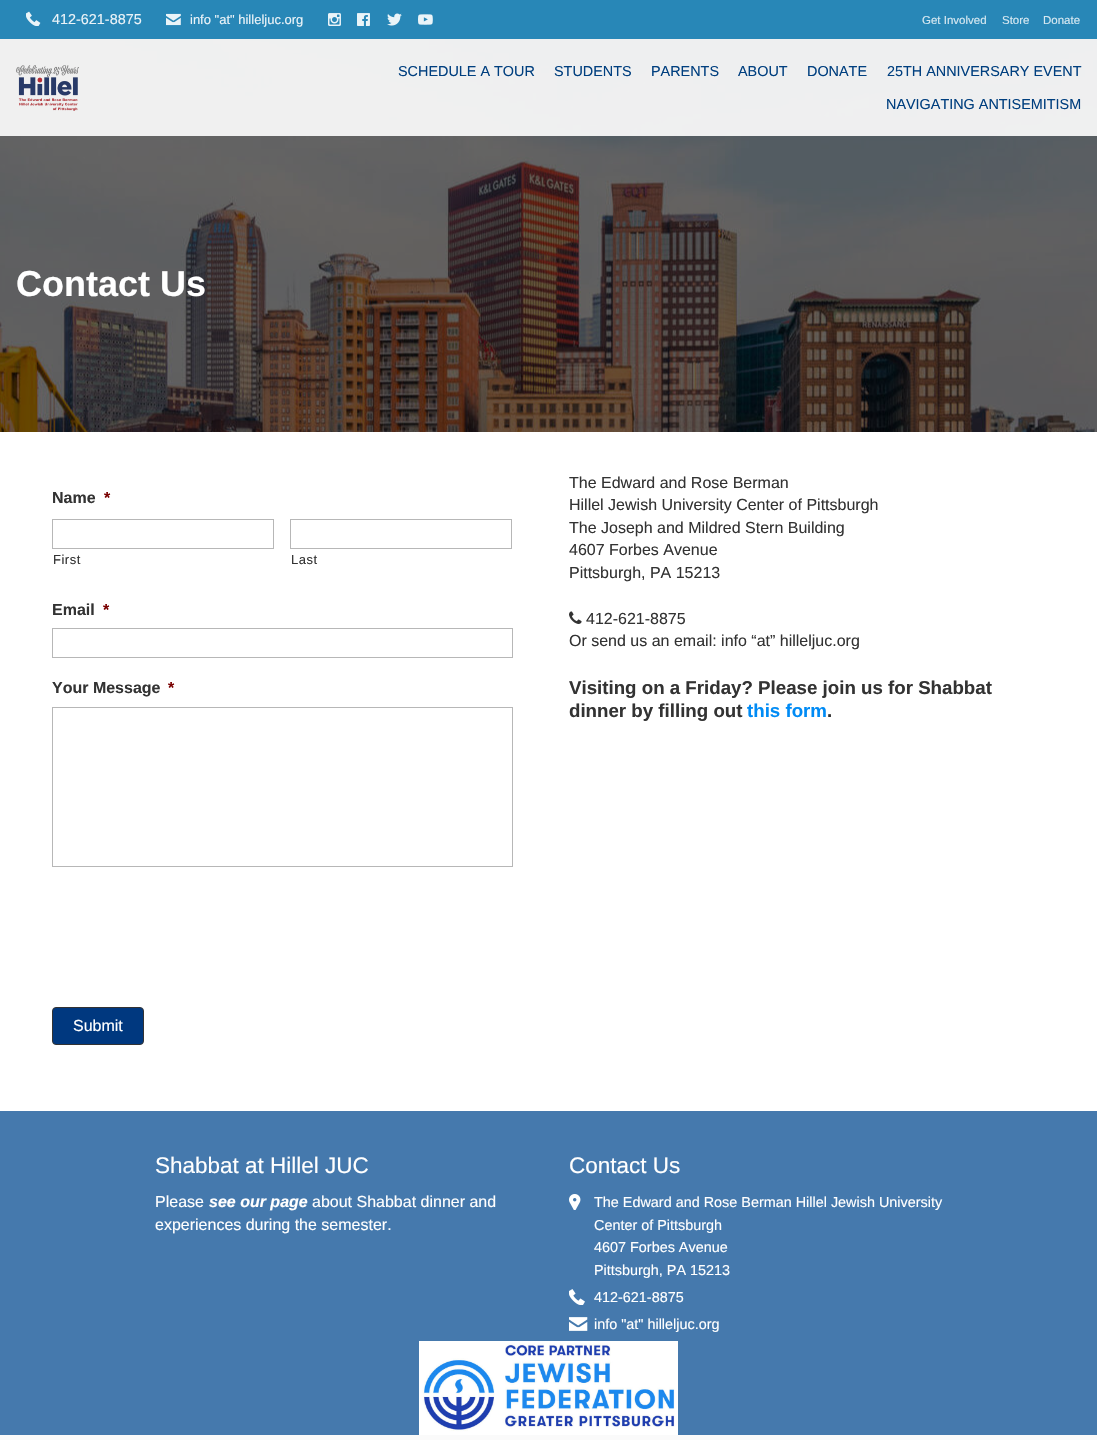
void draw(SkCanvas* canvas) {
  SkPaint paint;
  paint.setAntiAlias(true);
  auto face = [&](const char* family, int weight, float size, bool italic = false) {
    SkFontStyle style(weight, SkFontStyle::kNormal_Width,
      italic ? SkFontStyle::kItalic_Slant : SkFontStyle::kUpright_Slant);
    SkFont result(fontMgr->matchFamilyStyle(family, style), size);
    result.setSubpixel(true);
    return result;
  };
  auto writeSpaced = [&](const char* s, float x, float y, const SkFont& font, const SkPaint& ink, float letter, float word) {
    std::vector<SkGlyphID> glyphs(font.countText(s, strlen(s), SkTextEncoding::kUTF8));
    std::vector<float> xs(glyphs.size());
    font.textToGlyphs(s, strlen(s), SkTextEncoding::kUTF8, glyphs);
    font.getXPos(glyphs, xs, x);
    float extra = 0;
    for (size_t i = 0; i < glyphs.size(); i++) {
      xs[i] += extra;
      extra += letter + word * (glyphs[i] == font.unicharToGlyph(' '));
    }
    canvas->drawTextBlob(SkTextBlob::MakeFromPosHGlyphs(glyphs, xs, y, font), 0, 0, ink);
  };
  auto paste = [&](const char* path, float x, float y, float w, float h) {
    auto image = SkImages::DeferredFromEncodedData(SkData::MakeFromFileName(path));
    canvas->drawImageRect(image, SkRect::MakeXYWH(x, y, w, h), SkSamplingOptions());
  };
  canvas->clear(0xffffffff);
  paste("img/8.png", 0, 39, 1097, 393);
  paint.setColor(0xe6ffffff);
  canvas->drawRect(SkRect::MakeXYWH(0, 39, 1097, 97), paint);
  paint.setColor(0xff2887b7);
  canvas->drawRect(SkRect::MakeXYWH(0, 0, 1097, 39), paint);
  paste("img/1.png", 26, 11, 15, 15);
  paste("img/2.png", 166, 13, 15, 13);
  paste("img/3.png", 328, 13, 13, 13);
  paste("img/4.png", 357, 13, 13, 13);
  paste("img/5.png", 387, 13, 15, 13);
  paste("img/6.png", 418, 14, 15, 11);
  paste("img/7.png", 16, 65, 63, 46);
  paint.setStroke(true);
  paint.setStrokeWidth(1);
  paint.setColor(0xffb7b7b7);
  canvas->drawRect(SkRect::MakeXYWH(52.5f, 519.5f, 221, 29), paint);
  canvas->drawRect(SkRect::MakeXYWH(290.5f, 519.5f, 221, 29), paint);
  canvas->drawRect(SkRect::MakeXYWH(52.5f, 628.5f, 460, 29), paint);
  canvas->drawRect(SkRect::MakeXYWH(52.5f, 707.5f, 460, 159), paint);
  paint.setStroke(false);
  paint.setColor(0xff00387f);
  canvas->drawRoundRect(SkRect::MakeXYWH(52.5f, 1007.5f, 91, 37), 3.5f, 3.5f, paint);
  paint.setStroke(true);
  paint.setColor(0xff333333);
  canvas->drawRoundRect(SkRect::MakeXYWH(52.5f, 1007.5f, 91, 37), 3.5f, 3.5f, paint);
  paste("img/9.png", 569, 611, 13, 13);
  paint.setStroke(false);
  paint.setColor(0xff4579ad);
  canvas->drawRect(SkRect::MakeXYWH(0, 1111, 1097, 324), paint);
  paste("img/10.png", 569, 1194, 12, 16);
  paste("img/11.png", 569, 1289, 16, 16);
  paste("img/12.png", 569, 1317, 19, 14);
  paste("img/13.png", 419, 1341, 259, 94);
  paint.setColor(0xfffafafa);
  canvas->drawRect(SkRect::MakeXYWH(0, 1435, 1097, 5), paint);
  auto f0 = face("Liberation Sans", 400, 14.4f);
  paint.setColor(0xffeaf3f8);
  canvas->drawString("412-621-8875", 52, 24, f0, paint);
  auto f1 = face("Liberation Sans", 400, 13);
  canvas->drawString("info \"at\" hilleljuc.org", 190, 24, f1, paint);
  auto f2 = face("Liberation Sans", 400, 11.5f);
  paint.setColor(0xffd6e8f1);
  {
    const struct { const char* s; float x, y; } items[] = {
      {"Get Involved", 922, 24},
      {"Store", 1002, 24},
      {"Donate", 1043, 24},
    };
    for (auto [s, x, y] : items) {
      canvas->drawString(s, x, y, f2, paint);
    }
  }
  paint.setColor(0xff003f7f);
  {
    const struct { const char* s; float x, y; } items[] = {
      {"SCHEDULE A TOUR", 398, 76},
      {"STUDENTS", 554, 76},
      {"PARENTS", 651, 76},
      {"ABOUT", 738, 76},
      {"DONATE", 807, 76},
      {"25TH ANNIVERSARY EVENT", 887, 76},
      {"NAVIGATING ANTISEMITISM", 886, 109},
    };
    for (auto [s, x, y] : items) {
      canvas->drawString(s, x, y, f0, paint);
    }
  }
  auto f3 = face("Liberation Sans", 700, 36);
  paint.setColor(0xffffffff);
  canvas->drawString("Contact Us", 16, 296, f3, paint);
  auto f4 = face("Liberation Sans", 700, 16);
  paint.setColor(0xff333333);
  canvas->drawString("Name", 52, 503, f4, paint);
  paint.setColor(0xff790000);
  canvas->drawString("*", 104, 503, f4, paint);
  paint.setColor(0xff333333);
  writeSpaced("First", 53, 564, f1, paint, 0.5f, 0);
  writeSpaced("Last", 291, 564, f1, paint, 0.5f, 0);
  canvas->drawString("Email", 52, 615, f4, paint);
  paint.setColor(0xff790000);
  canvas->drawString("*", 103, 615, f4, paint);
  paint.setColor(0xff333333);
  canvas->drawString("Your Message", 52, 693, f4, paint);
  paint.setColor(0xff790000);
  canvas->drawString("*", 168, 693, f4, paint);
  auto f5 = face("Liberation Sans", 400, 16);
  paint.setColor(0xffffffff);
  canvas->drawString("Submit", 73, 1031, f5, paint);
  paint.setColor(0xff333333);
  {
    const struct { const char* s; float x, y; } items[] = {
      {"The Edward and Rose Berman", 569, 488},
      {"Hillel Jewish University Center of Pittsburgh", 569, 510},
      {"The Joseph and Mildred Stern Building", 569, 533},
      {"4607 Forbes Avenue", 569, 555},
      {"Pittsburgh, PA 15213", 569, 578},
      {"412-621-8875", 586, 624},
      {"Or send us an email: info “at” hilleljuc.org", 569, 646},
    };
    for (auto [s, x, y] : items) {
      canvas->drawString(s, x, y, f5, paint);
    }
  }
  auto f6 = face("Liberation Sans", 700, 18.7f);
  canvas->drawString("Visiting on a Friday? Please join us for Shabbat", 569, 694, f6, paint);
  canvas->drawString("dinner by filling out", 569, 717, f6, paint);
  paint.setColor(0xff008bf5);
  canvas->drawString("this form", 747, 717, f6, paint);
  paint.setColor(0xff333333);
  canvas->drawString(".", 827, 717, f6, paint);
  auto f7 = face("Liberation Sans", 400, 22.5f);
  paint.setColor(0xffffffff);
  canvas->drawString("Shabbat at Hillel JUC", 155, 1173, f7, paint);
  canvas->drawString("Please", 155, 1207, f5, paint);
  auto f8 = face("Liberation Sans", 700, 16, true);
  canvas->drawString("see our page", 209, 1207, f8, paint);
  canvas->drawString("about Shabbat dinner and", 312, 1207, f5, paint);
  canvas->drawString("experiences during the semester.", 155, 1230, f5, paint);
  canvas->drawString("Contact Us", 569, 1173, f7, paint);
  {
    const struct { const char* s; float x, y; } items[] = {
      {"The Edward and Rose Berman Hillel Jewish University", 594, 1207},
      {"Center of Pittsburgh", 594, 1230},
      {"4607 Forbes Avenue", 594, 1252},
      {"Pittsburgh, PA 15213", 594, 1275},
      {"412-621-8875", 594, 1302},
      {"info \"at\" hilleljuc.org", 594, 1329},
    };
    for (auto [s, x, y] : items) {
      canvas->drawString(s, x, y, f0, paint);
    }
  }
}
